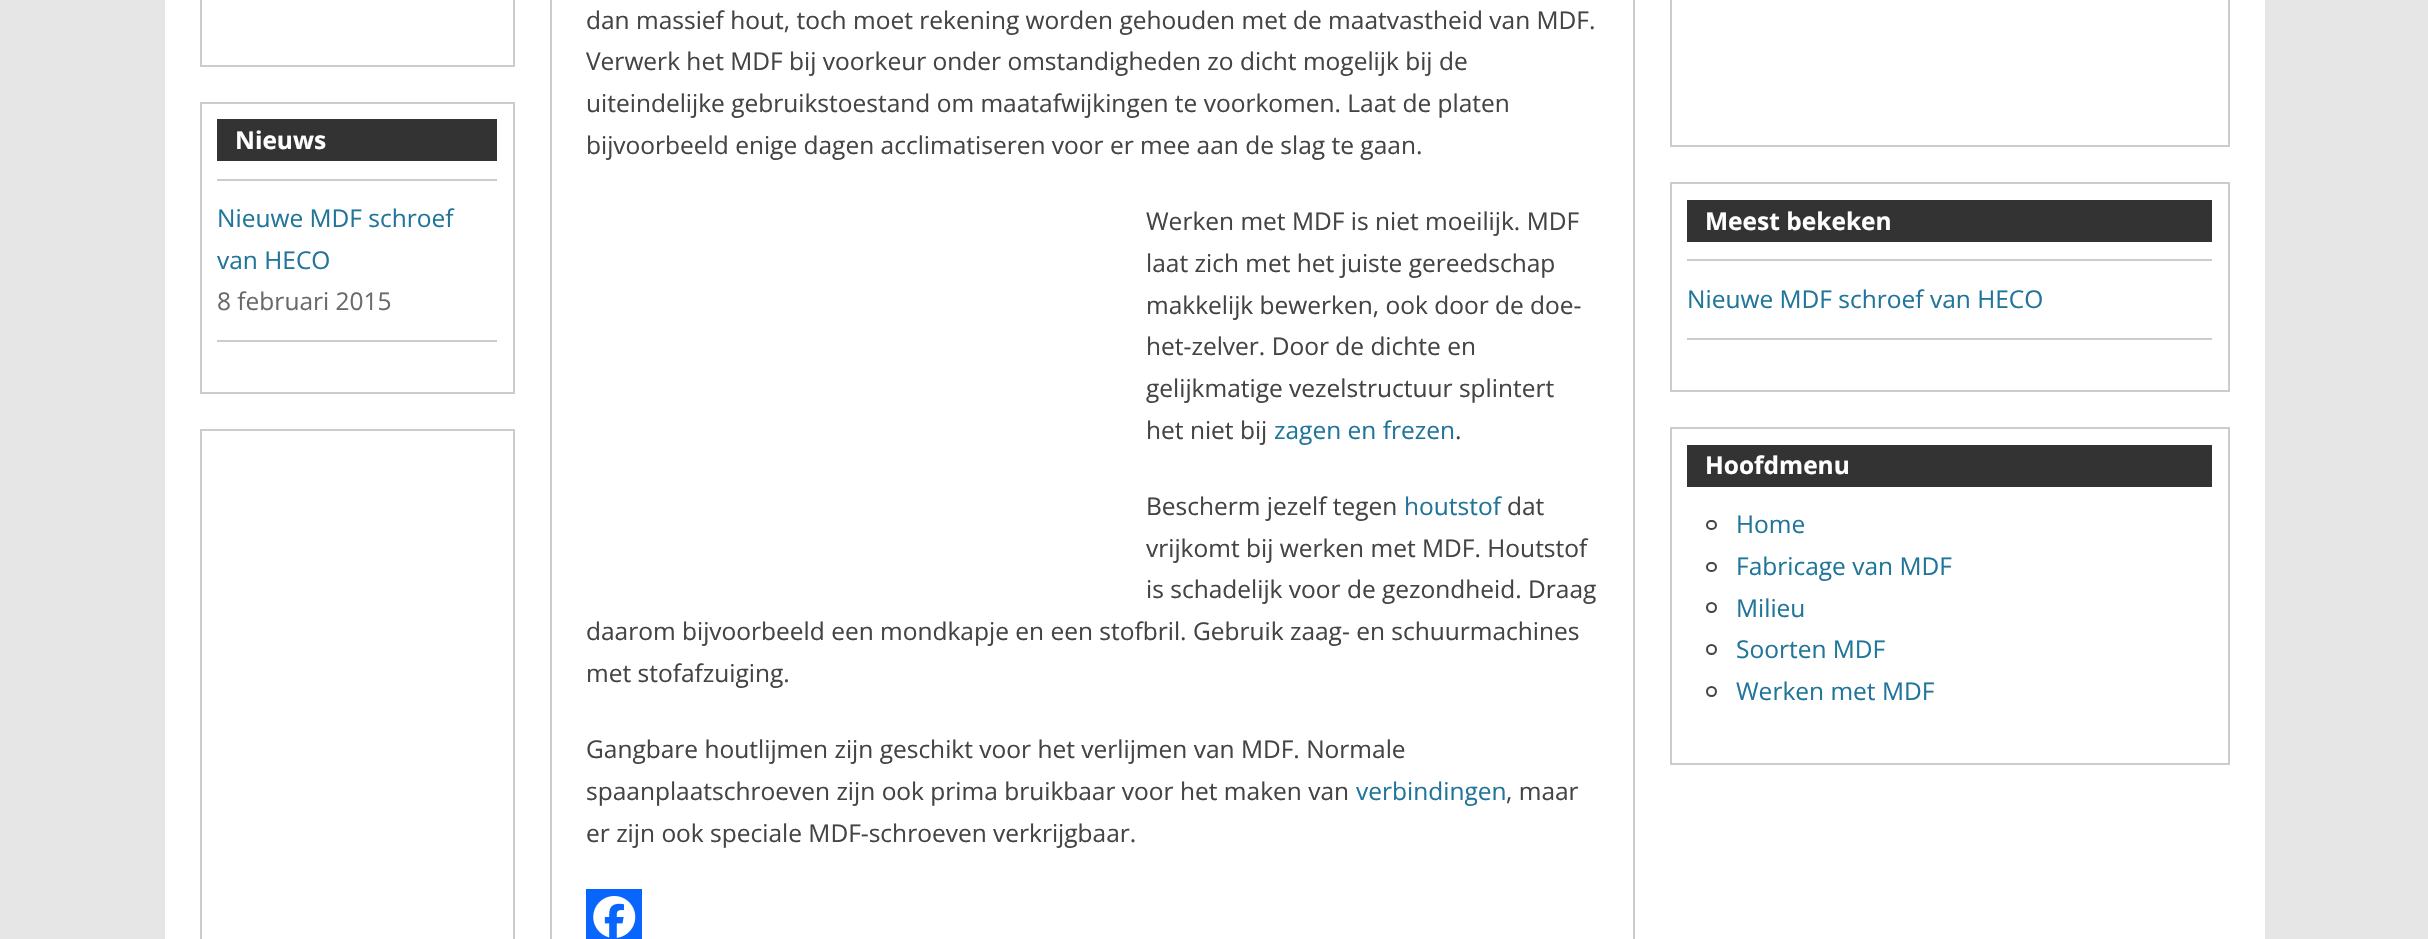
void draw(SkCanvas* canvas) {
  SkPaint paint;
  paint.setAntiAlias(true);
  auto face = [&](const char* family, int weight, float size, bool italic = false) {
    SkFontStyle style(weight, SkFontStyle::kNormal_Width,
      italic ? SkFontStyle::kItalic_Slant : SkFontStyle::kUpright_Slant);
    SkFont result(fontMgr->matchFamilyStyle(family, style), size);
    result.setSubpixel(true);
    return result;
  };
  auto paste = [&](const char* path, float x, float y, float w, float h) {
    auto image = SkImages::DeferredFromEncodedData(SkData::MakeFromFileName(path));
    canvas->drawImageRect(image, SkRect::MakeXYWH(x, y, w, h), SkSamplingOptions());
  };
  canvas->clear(0xffe6e6e6);
  paint.setColor(0xffffffff);
  canvas->drawRect(SkRect::MakeXYWH(165, 0, 2100, 939), paint);
  paint.setStroke(true);
  paint.setStrokeWidth(2);
  paint.setColor(0xffcccccc);
  canvas->drawRect(SkRect::MakeXYWH(201, -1, 313, 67), paint);
  canvas->drawRect(SkRect::MakeXYWH(201, 103, 313, 290), paint);
  paint.setStroke(false);
  {
    const struct { float x, y, w, h; SkColor color; } items[] = {
      {217, 119, 280, 42, 0xff333333},
      {217, 179, 280, 2, 0xffcccccc},
      {217, 340, 280, 2, 0xffcccccc},
    };
    for (auto [x, y, w, h, color] : items) {
      paint.setColor(color);
      canvas->drawRect(SkRect::MakeXYWH(x, y, w, h), paint);
    }
  }
  paint.setStroke(true);
  canvas->drawRect(SkRect::MakeXYWH(201, 430, 313, 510), paint);
  canvas->drawRect(SkRect::MakeXYWH(551, -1, 1083, 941), paint);
  paint.setStroke(false);
  paint.setColor(0xff0866ff);
  canvas->drawRect(SkRect::MakeXYWH(586, 889, 56, 50), paint);
  paste("img/1.png", 593, 896, 43, 42);
  paint.setStroke(true);
  paint.setColor(0xffcccccc);
  canvas->drawRect(SkRect::MakeXYWH(1671, -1, 558, 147), paint);
  canvas->drawRect(SkRect::MakeXYWH(1671, 183, 558, 208), paint);
  paint.setStroke(false);
  {
    const struct { float x, y, w, h; SkColor color; } items[] = {
      {1687, 200, 525, 42, 0xff333333},
      {1687, 259, 525, 2, 0xffcccccc},
      {1687, 338, 525, 2, 0xffcccccc},
    };
    for (auto [x, y, w, h, color] : items) {
      paint.setColor(color);
      canvas->drawRect(SkRect::MakeXYWH(x, y, w, h), paint);
    }
  }
  paint.setStroke(true);
  canvas->drawRect(SkRect::MakeXYWH(1671, 428, 558, 336), paint);
  paint.setStroke(false);
  paint.setColor(0xff333333);
  canvas->drawRect(SkRect::MakeXYWH(1687, 445, 525, 42), paint);
  paint.setStroke(true);
  paint.setColor(0xff444444);
  canvas->drawRoundRect(SkRect::MakeXYWH(1707, 521, 9, 8), 4, 4, paint);
  canvas->drawRoundRect(SkRect::MakeXYWH(1707, 563, 9, 8), 4, 4, paint);
  canvas->drawCircle(1711.5f, 607.5f, 4.5f, paint);
  canvas->drawCircle(1711.5f, 649.5f, 4.5f, paint);
  canvas->drawCircle(1711.5f, 691.5f, 4.5f, paint);
  auto f0 = face("Open Sans", 700, 24.5f);
  paint.setStroke(false);
  paint.setColor(0xffffffff);
  canvas->drawString("Nieuws", 235, 149, f0, paint);
  auto f1 = face("Open Sans", 400, 24.5f);
  paint.setColor(0xff21759b);
  canvas->drawString("Nieuwe MDF schroef", 217, 227, f1, paint);
  canvas->drawString("van HECO", 217, 269, f1, paint);
  paint.setColor(0xff6a6a6a);
  canvas->drawString("8 februari 2015", 217, 310, f1, paint);
  paint.setColor(0xff444444);
  {
    const struct { const char* s; float x, y; } items[] = {
      {"dan massief hout, toch moet rekening worden gehouden met de maatvastheid van MDF.", 586, 29},
      {"Verwerk het MDF bij voorkeur onder omstandigheden zo dicht mogelijk bij de", 586, 70},
      {"uiteindelijke gebruikstoestand om maatafwijkingen te voorkomen. Laat de platen", 586, 112},
      {"bijvoorbeeld enige dagen acclimatiseren voor er mee aan de slag te gaan.", 586, 154},
      {"Werken met MDF is niet moeilijk. MDF", 1146, 230},
      {"laat zich met het juiste gereedschap", 1146, 272},
      {"makkelijk bewerken, ook door de doe-", 1146, 314},
      {"het-zelver. Door de dichte en", 1146, 355},
      {"gelijkmatige vezelstructuur splintert", 1146, 397},
      {"het niet bij", 1146, 439},
    };
    for (auto [s, x, y] : items) {
      canvas->drawString(s, x, y, f1, paint);
    }
  }
  paint.setColor(0xff21759b);
  canvas->drawString("zagen en frezen", 1274, 439, f1, paint);
  paint.setColor(0xff444444);
  canvas->drawString(".", 1455, 439, f1, paint);
  canvas->drawString("Bescherm jezelf tegen", 1146, 515, f1, paint);
  paint.setColor(0xff21759b);
  canvas->drawString("houtstof", 1404, 515, f1, paint);
  paint.setColor(0xff444444);
  {
    const struct { const char* s; float x, y; } items[] = {
      {"dat", 1507, 515},
      {"vrijkomt bij werken met MDF. Houtstof", 1146, 557},
      {"is schadelijk voor de gezondheid. Draag", 1146, 598},
      {"daarom bijvoorbeeld een mondkapje en een stofbril. Gebruik zaag- en schuurmachines", 586, 640},
      {"met stofafzuiging.", 586, 682},
      {"Gangbare houtlijmen zijn geschikt voor het verlijmen van MDF. Normale", 586, 758},
      {"spaanplaatschroeven zijn ook prima bruikbaar voor het maken van", 586, 800},
    };
    for (auto [s, x, y] : items) {
      canvas->drawString(s, x, y, f1, paint);
    }
  }
  paint.setColor(0xff21759b);
  canvas->drawString("verbindingen", 1356, 800, f1, paint);
  paint.setColor(0xff444444);
  canvas->drawString(", maar", 1506, 800, f1, paint);
  canvas->drawString("er zijn ook speciale MDF-schroeven verkrijgbaar.", 586, 842, f1, paint);
  paint.setColor(0xffffffff);
  canvas->drawString("Meest bekeken", 1705, 230, f0, paint);
  paint.setColor(0xff21759b);
  canvas->drawString("Nieuwe MDF schroef van HECO", 1687, 308, f1, paint);
  paint.setColor(0xffffffff);
  canvas->drawString("Hoofdmenu", 1705, 474, f0, paint);
  paint.setColor(0xff21759b);
  {
    const struct { const char* s; float x, y; } items[] = {
      {"Home", 1736, 533},
      {"Fabricage van MDF", 1736, 575},
      {"Milieu", 1736, 617},
      {"Soorten MDF", 1736, 658},
      {"Werken met MDF", 1736, 700},
    };
    for (auto [s, x, y] : items) {
      canvas->drawString(s, x, y, f1, paint);
    }
  }
}
